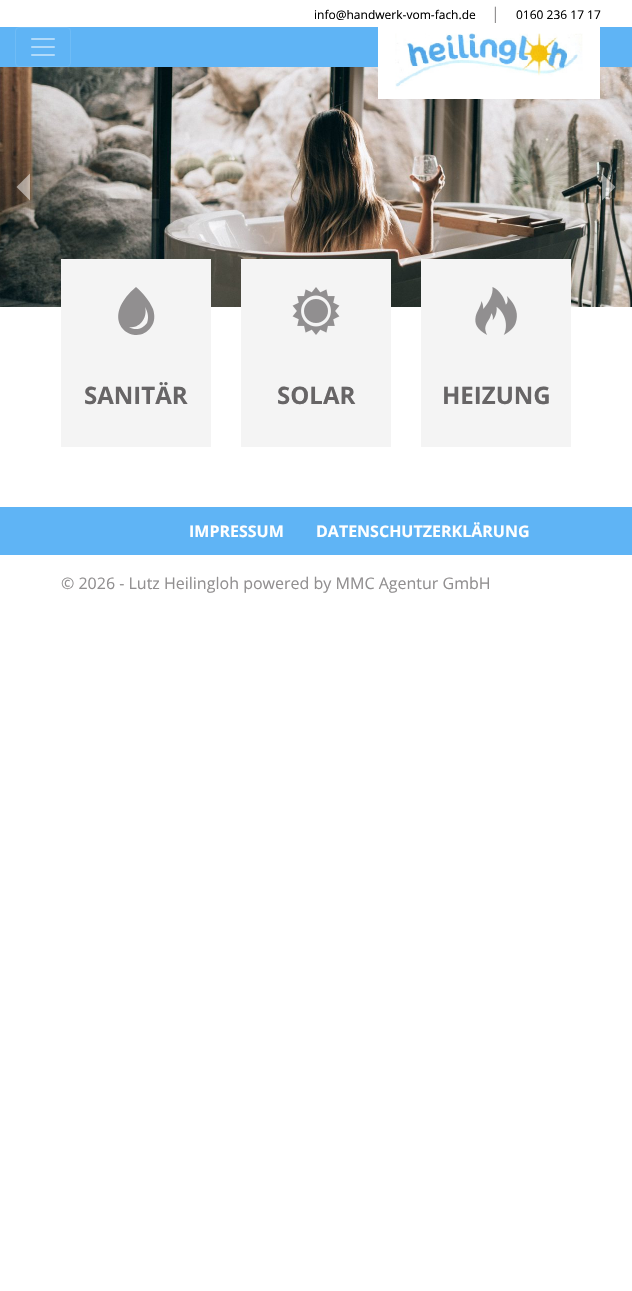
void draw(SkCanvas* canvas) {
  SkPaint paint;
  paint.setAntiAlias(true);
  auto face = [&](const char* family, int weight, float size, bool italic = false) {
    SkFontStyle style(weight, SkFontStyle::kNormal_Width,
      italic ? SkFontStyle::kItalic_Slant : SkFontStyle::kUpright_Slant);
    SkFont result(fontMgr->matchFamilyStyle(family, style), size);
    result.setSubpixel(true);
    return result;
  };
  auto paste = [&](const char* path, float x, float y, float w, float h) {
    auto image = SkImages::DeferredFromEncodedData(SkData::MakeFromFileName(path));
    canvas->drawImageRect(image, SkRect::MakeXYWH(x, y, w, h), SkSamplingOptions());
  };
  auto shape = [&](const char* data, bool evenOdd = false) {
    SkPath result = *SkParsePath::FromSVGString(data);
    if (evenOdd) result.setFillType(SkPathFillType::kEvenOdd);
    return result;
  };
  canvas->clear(0xffffffff);
  paint.setColor(0xff5fb4f5);
  canvas->drawRect(SkRect::MakeXYWH(0, 27, 632, 40), paint);
  paste("img/3.png", 0, 67, 632, 240);
  paste("img/1.png", 378, 27, 222, 72);
  paint.setStroke(true);
  paint.setStrokeWidth(1);
  paint.setColor(0xff6fbcf6);
  canvas->drawRoundRect(SkRect::MakeXYWH(15.5f, 27.5f, 55, 39), 3.5f, 3.5f, paint);
  paste("img/2.png", 31, 38, 24, 18);
  paint.setStroke(false);
  paint.setColor(0x80ffffff);
  canvas->drawPath(shape("M30 173.5L16.5 187L30 200.5Z"), paint);
  canvas->drawPath(shape("M602 200.5L615.5 187L602 173.5Z"), paint);
  paint.setColor(0xfff4f4f4);
  canvas->drawRect(SkRect::MakeXYWH(61, 259, 150, 188), paint);
  paint.setColor(0xff918f90);
  canvas->drawPath(shape("M153 309C149 300 143 293 136 287C95 322 136 349 151 327C155 322 155 315 153 309ZM147 323C143 329 135 331 129 327C140 329 148 317 145 307C148 312 149 318 147 323Z"), paint);
  paint.setColor(0xfff4f4f4);
  canvas->drawRect(SkRect::MakeXYWH(241, 259, 150, 188), paint);
  paste("img/4.png", 292, 287, 48, 48);
  canvas->drawRect(SkRect::MakeXYWH(421, 259, 150, 188), paint);
  paste("img/5.png", 475, 287, 42, 48);
  paint.setColor(0xff5fb4f5);
  canvas->drawRect(SkRect::MakeXYWH(0, 507, 632, 48), paint);
  auto f0 = face("Open Sans", 400, 12);
  paint.setColor(0xff000000);
  canvas->drawString("info@handwerk-vom-fach.de", 314, 19, f0, paint);
  auto f1 = face("Open Sans", 400, 16);
  paint.setColor(0xff918f90);
  canvas->drawString("|", 491, 19, f1, paint);
  paint.setColor(0xff000000);
  canvas->drawString("0160 236 17 17", 516, 19, f0, paint);
  auto f2 = face("Open Sans", 700, 24);
  paint.setColor(0xff676566);
  {
    const struct { const char* s; float x, y; } items[] = {
      {"SANITÄR", 84, 404},
      {"SOLAR", 277, 404},
      {"HEIZUNG", 442, 404},
    };
    for (auto [s, x, y] : items) {
      canvas->drawString(s, x, y, f2, paint);
    }
  }
  auto f3 = face("Open Sans", 700, 16);
  paint.setColor(0xffffffff);
  canvas->drawString("IMPRESSUM", 189, 537, f3, paint);
  canvas->drawString("DATENSCHUTZERKLÄRUNG", 316, 537, f3, paint);
  paint.setColor(0xff918f90);
  canvas->drawString("© 2026 - Lutz Heilingloh powered by MMC Agentur GmbH", 61, 589, f1, paint);
}
